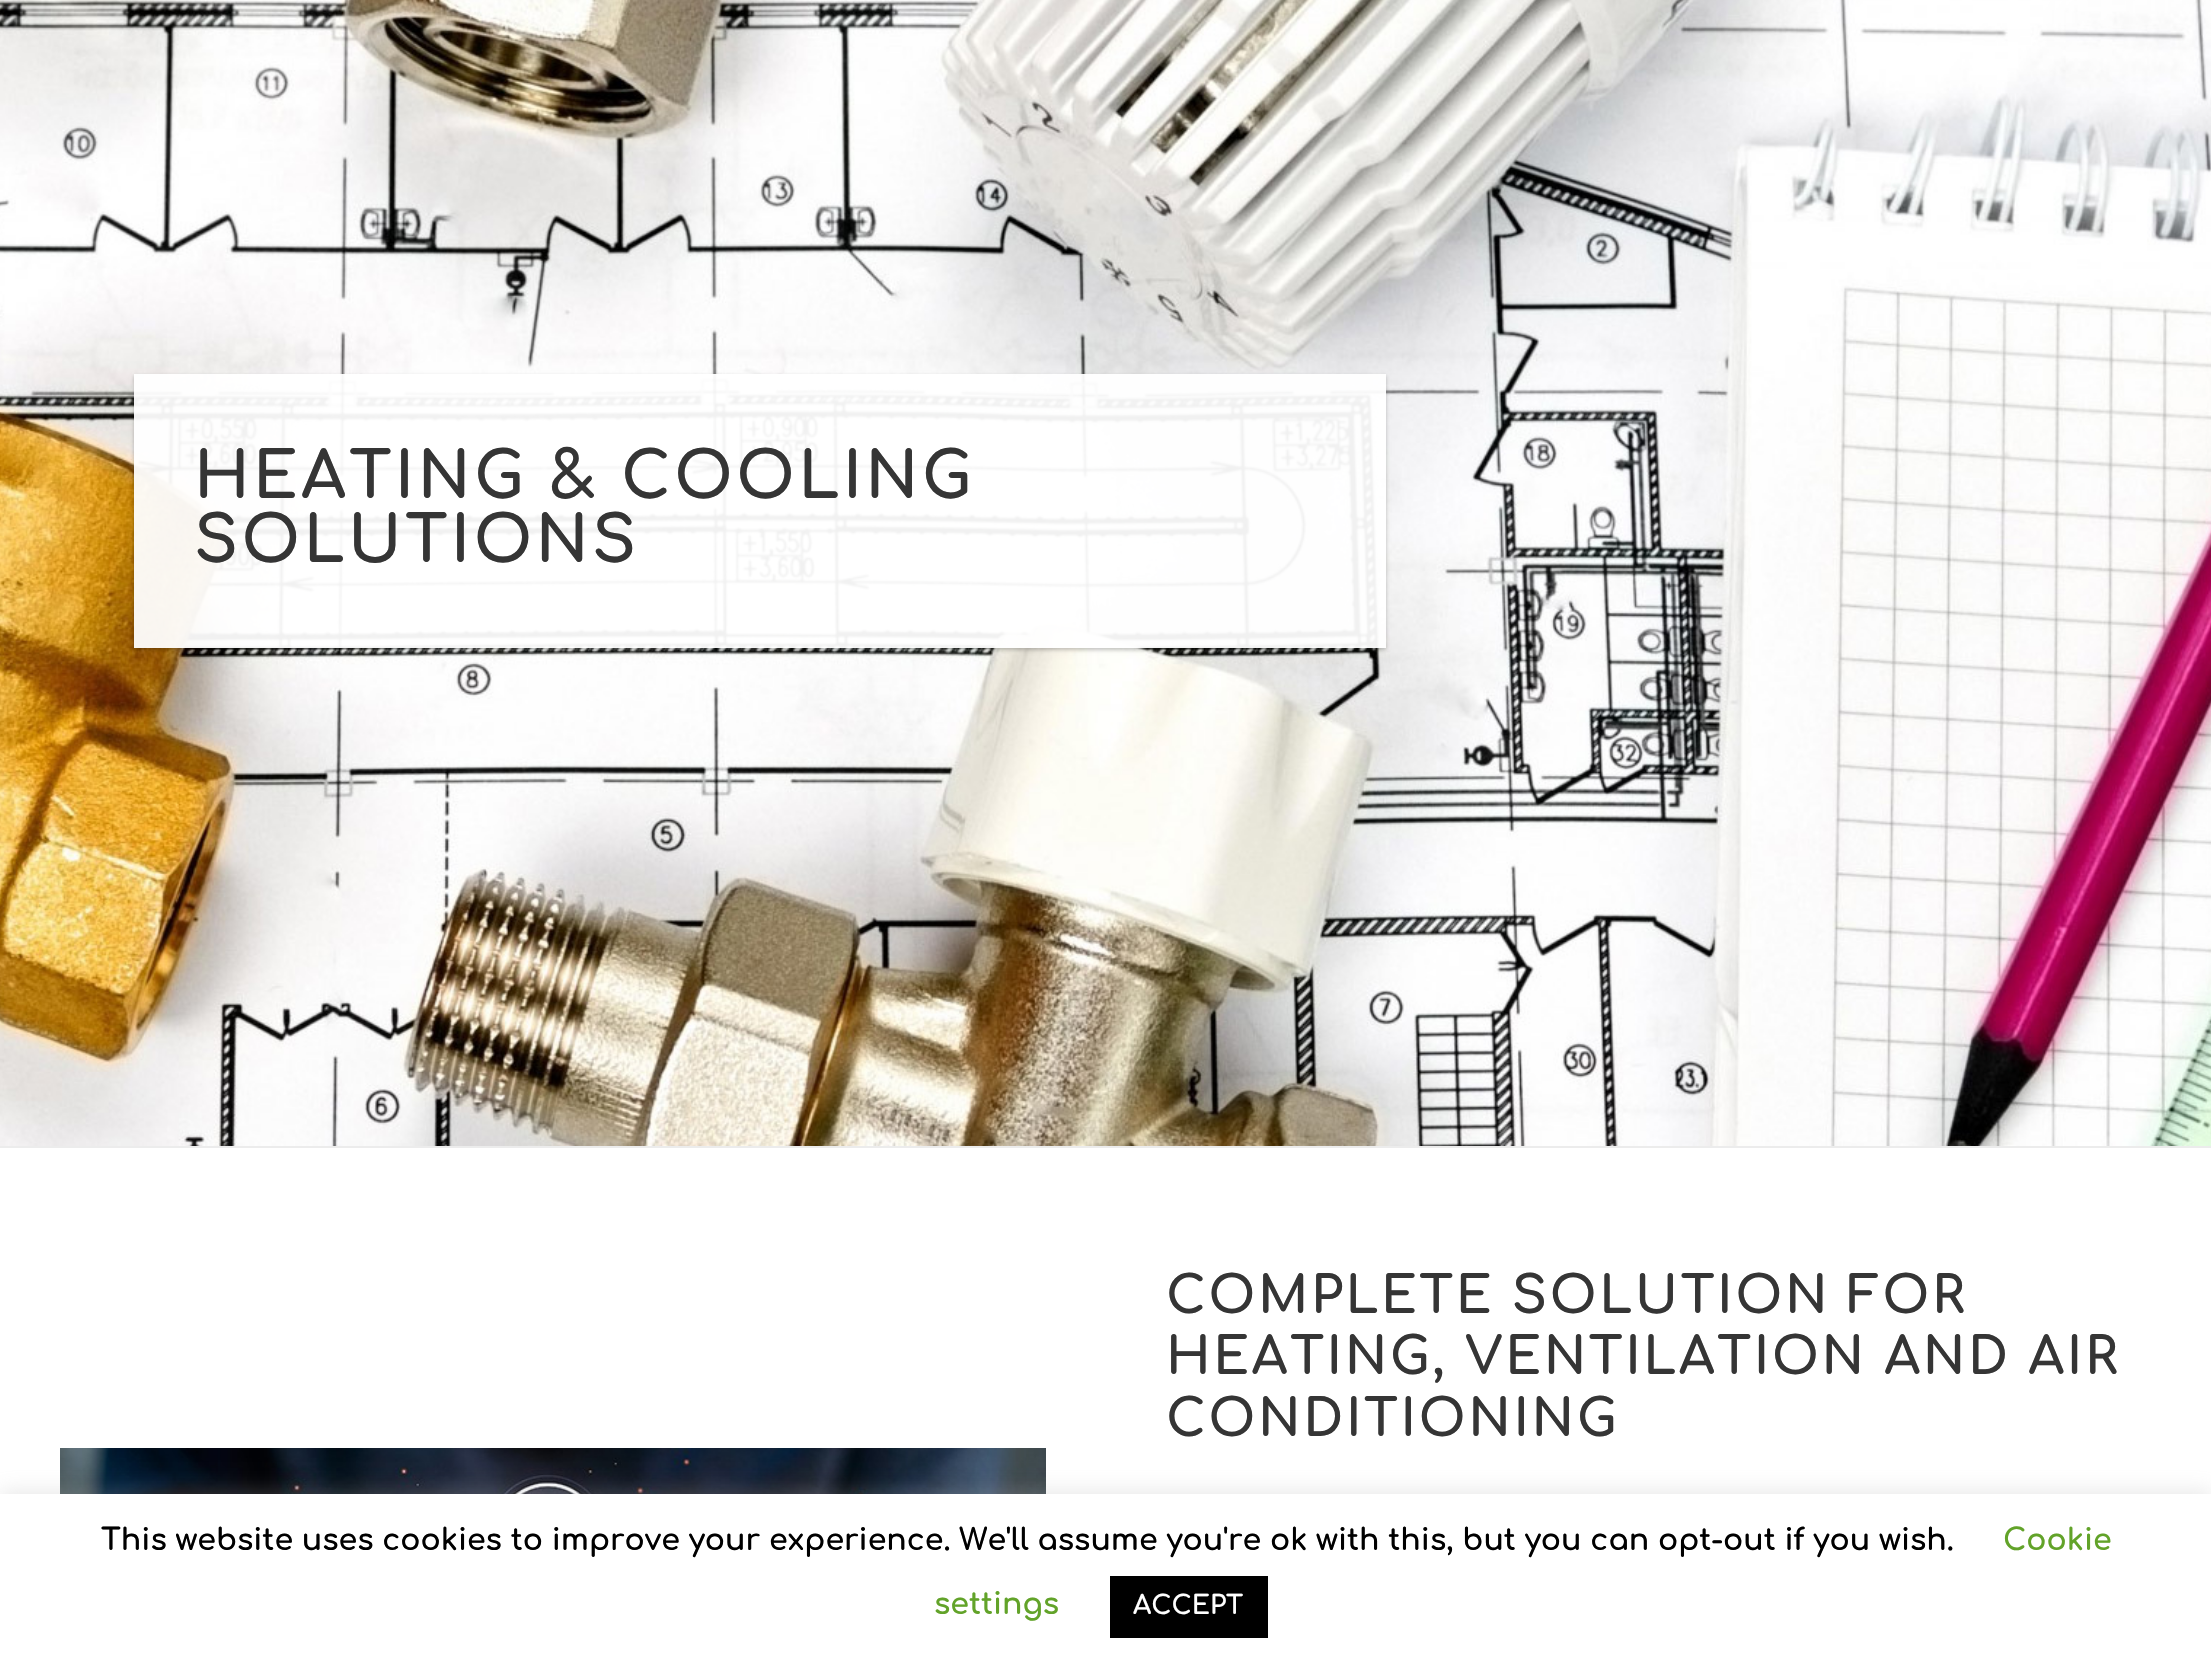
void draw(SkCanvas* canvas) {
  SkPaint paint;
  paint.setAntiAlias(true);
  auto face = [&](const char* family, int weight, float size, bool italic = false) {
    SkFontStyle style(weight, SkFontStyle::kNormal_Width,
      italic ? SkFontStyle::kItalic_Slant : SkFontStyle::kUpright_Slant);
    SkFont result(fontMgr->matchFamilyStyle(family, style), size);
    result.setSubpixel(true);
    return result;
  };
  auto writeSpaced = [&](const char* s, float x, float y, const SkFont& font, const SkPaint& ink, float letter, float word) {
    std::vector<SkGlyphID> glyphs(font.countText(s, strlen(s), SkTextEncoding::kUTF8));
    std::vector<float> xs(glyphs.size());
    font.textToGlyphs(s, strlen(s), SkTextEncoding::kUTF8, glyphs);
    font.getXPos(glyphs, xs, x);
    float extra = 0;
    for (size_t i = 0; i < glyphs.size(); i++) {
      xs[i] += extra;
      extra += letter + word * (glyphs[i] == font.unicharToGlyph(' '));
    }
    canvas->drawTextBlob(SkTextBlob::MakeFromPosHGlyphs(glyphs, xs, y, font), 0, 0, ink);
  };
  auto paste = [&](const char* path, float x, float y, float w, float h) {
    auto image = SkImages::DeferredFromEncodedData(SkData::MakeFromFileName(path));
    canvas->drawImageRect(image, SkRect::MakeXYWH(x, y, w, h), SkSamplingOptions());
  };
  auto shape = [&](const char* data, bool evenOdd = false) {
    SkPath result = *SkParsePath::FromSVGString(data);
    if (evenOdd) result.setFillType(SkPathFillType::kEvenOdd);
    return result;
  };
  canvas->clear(0xffffffff);
  paste("img/1.png", 0, 0, 2211, 1146);
  canvas->save();
  canvas->clipPath(shape("M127 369H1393V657H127ZM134 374H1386V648H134Z", true), true);
  paint.setColor(0x3d000000);
  paint.setMaskFilter(SkMaskFilter::MakeBlur(kNormal_SkBlurStyle, 2));
  canvas->drawRect(SkRect::MakeXYWH(134, 376, 1252, 274), paint);
  paint.setMaskFilter(nullptr);
  canvas->restore();
  paint.setColor(0xf0ffffff);
  canvas->drawRect(SkRect::MakeXYWH(134, 374, 1252, 274), paint);
  paint.setColor(0xffececec);
  canvas->drawRect(SkRect::MakeXYWH(0, 1146, 2211, 2), paint);
  paste("img/2.png", 60, 1448, 986, 46);
  paint.setColor(0x4dacabab);
  paint.setMaskFilter(SkMaskFilter::MakeBlur(kNormal_SkBlurStyle, 10));
  canvas->drawRect(SkRect::MakeXYWH(0, 1492, 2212, 178), paint);
  paint.setMaskFilter(nullptr);
  paint.setColor(0xffffffff);
  canvas->drawRect(SkRect::MakeXYWH(0, 1494, 2211, 177), paint);
  paint.setColor(0xff000000);
  canvas->drawRect(SkRect::MakeXYWH(1110, 1576, 158, 62), paint);
  auto f0 = face("Comfortaa", 700, 64);
  paint.setColor(0xff353535);
  writeSpaced("HEATING & COOLING", 194, 498, f0, paint, 3.25f, 0);
  writeSpaced("SOLUTIONS", 194, 562, f0, paint, 3.25f, 0);
  auto f1 = face("Comfortaa", 700, 51.25f);
  {
    const struct { const char* s; float x, y; } items[] = {
      {"COMPLETE SOLUTION FOR", 1166, 1313},
      {"HEATING, VENTILATION AND AIR", 1166, 1374},
      {"CONDITIONING", 1166, 1436},
    };
    for (auto [s, x, y] : items) {
      writeSpaced(s, x, y, f1, paint, 2.55f, 0);
    }
  }
  auto f2 = face("Comfortaa", 700, 30);
  paint.setColor(0xff000000);
  canvas->drawString("This website uses cookies to improve your experience. We'll assume you're ok with this, but you can opt-out if you wish.", 101, 1550, f2, paint);
  paint.setColor(0xff62a329);
  canvas->drawString("Cookie", 2003, 1550, f2, paint);
  canvas->drawString("settings", 934, 1614, f2, paint);
  auto f3 = face("Comfortaa", 700, 26);
  paint.setColor(0xffffffff);
  canvas->drawString("ACCEPT", 1133, 1614, f3, paint);
}
